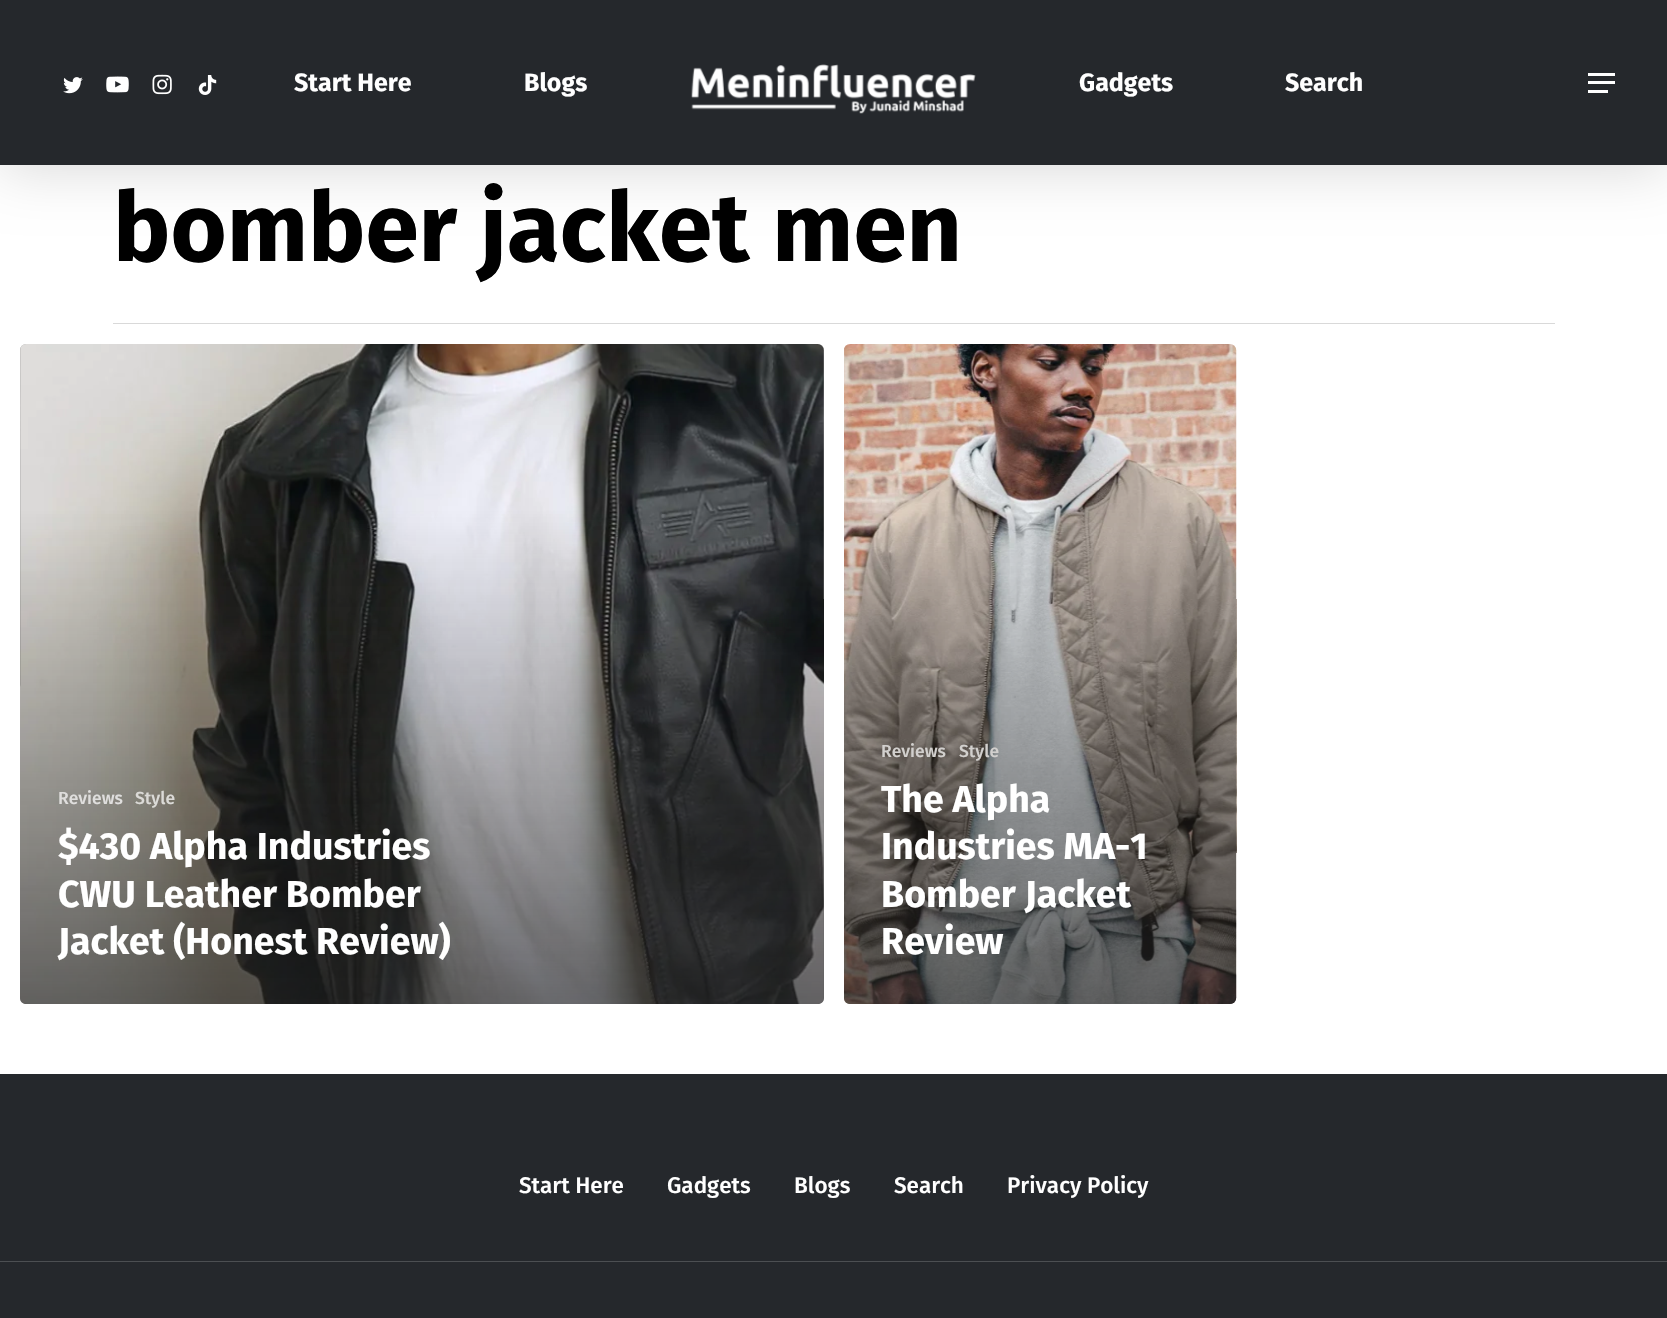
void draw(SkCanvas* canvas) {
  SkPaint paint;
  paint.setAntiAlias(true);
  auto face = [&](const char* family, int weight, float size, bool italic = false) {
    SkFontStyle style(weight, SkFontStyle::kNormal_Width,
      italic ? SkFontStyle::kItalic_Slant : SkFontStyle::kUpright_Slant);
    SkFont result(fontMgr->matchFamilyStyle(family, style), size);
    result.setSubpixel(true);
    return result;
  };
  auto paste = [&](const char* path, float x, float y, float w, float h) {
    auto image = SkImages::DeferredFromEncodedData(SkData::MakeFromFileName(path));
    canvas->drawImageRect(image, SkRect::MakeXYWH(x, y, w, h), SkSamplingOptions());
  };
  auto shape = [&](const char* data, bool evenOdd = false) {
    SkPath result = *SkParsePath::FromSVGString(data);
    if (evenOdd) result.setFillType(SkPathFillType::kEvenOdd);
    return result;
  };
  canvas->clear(0xffffffff);
  paint.setColor(0x26000000);
  paint.setMaskFilter(SkMaskFilter::MakeBlur(kNormal_SkBlurStyle, 28));
  canvas->drawRect(SkRect::MakeXYWH(0, 4, 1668, 165), paint);
  paint.setMaskFilter(nullptr);
  paint.setColor(0xff25282c);
  canvas->drawRect(SkRect::MakeXYWH(0, 0, 1667, 165), paint);
  paste("img/1.png", 691, 64, 285, 50);
  paste("img/2.png", 63, 77, 20, 17);
  paste("img/3.png", 106, 76, 23, 17);
  paste("img/4.png", 152, 74, 20, 21);
  paste("img/5.png", 198, 75, 19, 20);
  {
    const struct { float x, y, w, h; SkColor color; } items[] = {
      {1588, 73, 27, 3, 0xffffffff},
      {1588, 90, 20, 3, 0xffffffff},
      {1588, 81, 27, 3, 0xffffffff},
      {113, 323, 1442, 1, 0xffd9d9d9},
    };
    for (auto [x, y, w, h, color] : items) {
      paint.setColor(color);
      canvas->drawRect(SkRect::MakeXYWH(x, y, w, h), paint);
    }
  }
  paint.setColor(0xffb3b3b3);
  canvas->drawRoundRect(SkRect::MakeXYWH(20, 344, 804, 660), 6, 6, paint);
  paste("img/6.png", 20, 344, 804, 660);
  {
    const SkColor colors[] = {0x00232323, 0xa6232323};
    const float stops[] = {0, 1};
    const SkPoint ends[] = {{424, 510}, {424, 1006}};
    paint.setShader(SkGradientShader::MakeLinear(ends, colors, stops, 2, SkTileMode::kClamp));
    paint.setAlpha(255);
  }
  canvas->drawPath(shape("M20 510H824V998C824 1001.5 821.5 1004 818 1004H26C22.5 1004 20 1001.5 20 998Z"), paint);
  paste("img/7.png", 844, 344, 393, 660);
  {
    const SkColor colors[] = {0x00232323, 0xa6232323};
    const float stops[] = {0, 1};
    const SkPoint ends[] = {{1041, 510}, {1041, 1006}};
    paint.setShader(SkGradientShader::MakeLinear(ends, colors, stops, 2, SkTileMode::kClamp));
    paint.setAlpha(255);
  }
  canvas->drawPath(shape("M844 510H1236V998C1236 1001.5 1233.5 1004 1230 1004H850C846.5 1004 844 1001.5 844 998Z"), paint);
  paint.setShader(nullptr);
  paint.setColor(0xff25282c);
  canvas->drawRect(SkRect::MakeXYWH(0, 1074, 1667, 244), paint);
  paint.setColor(0xff4c4f52);
  canvas->drawRect(SkRect::MakeXYWH(0, 1261, 1667, 1), paint);
  auto f0 = face("Fira Sans", 700, 25);
  paint.setColor(0xffffffff);
  {
    const struct { const char* s; float x, y; } items[] = {
      {"Start Here", 294, 91},
      {"Blogs", 524, 91},
      {"Gadgets", 1079, 91},
      {"Search", 1285, 91},
    };
    for (auto [s, x, y] : items) {
      canvas->drawString(s, x, y, f0, paint);
    }
  }
  auto f1 = face("Fira Sans", 700, 96.25f);
  paint.setColor(0xff000000);
  canvas->drawString("bomber jacket men", 113, 261, f1, paint);
  auto f2 = face("Fira Sans", 500, 17.5f);
  paint.setColor(0xffdfdedd);
  canvas->drawString("Reviews", 58, 804, f2, paint);
  paint.setColor(0xffdbdad7);
  canvas->drawString("Style", 135, 804, f2, paint);
  auto f3 = face("Fira Sans", 700, 37.5f);
  paint.setColor(0xffffffff);
  {
    const struct { const char* s; float x, y; } items[] = {
      {"$430 Alpha Industries", 58, 859},
      {"CWU Leather Bomber", 58, 907},
      {"Jacket (Honest Review)", 58, 954},
    };
    for (auto [s, x, y] : items) {
      canvas->drawString(s, x, y, f3, paint);
    }
  }
  paint.setColor(0xffd2d0ce);
  canvas->drawString("Reviews", 881, 757, f2, paint);
  canvas->drawString("Style", 959, 757, f2, paint);
  paint.setColor(0xffffffff);
  {
    const struct { const char* s; float x, y; } items[] = {
      {"The Alpha", 881, 812},
      {"Industries MA-1", 881, 859},
      {"Bomber Jacket", 881, 907},
      {"Review", 881, 954},
    };
    for (auto [s, x, y] : items) {
      canvas->drawString(s, x, y, f3, paint);
    }
  }
  auto f4 = face("Fira Sans", 500, 22.5f);
  {
    const struct { const char* s; float x, y; } items[] = {
      {"Start Here", 519, 1193},
      {"Gadgets", 667, 1193},
      {"Blogs", 794, 1193},
      {"Search", 894, 1193},
      {"Privacy Policy", 1007, 1193},
    };
    for (auto [s, x, y] : items) {
      canvas->drawString(s, x, y, f4, paint);
    }
  }
}
